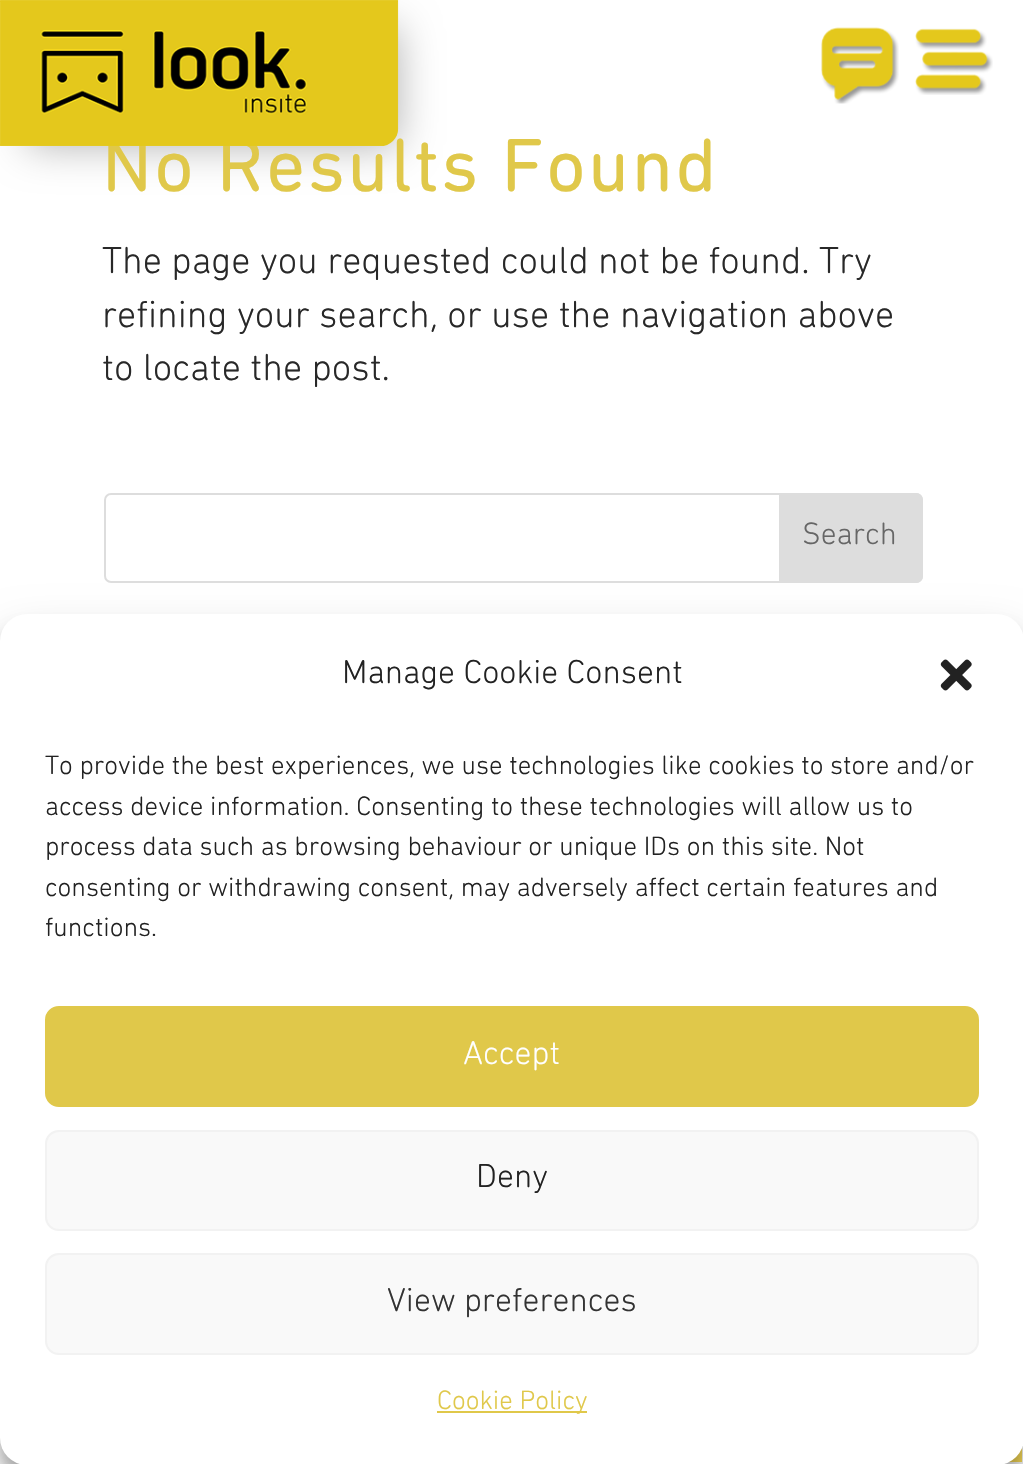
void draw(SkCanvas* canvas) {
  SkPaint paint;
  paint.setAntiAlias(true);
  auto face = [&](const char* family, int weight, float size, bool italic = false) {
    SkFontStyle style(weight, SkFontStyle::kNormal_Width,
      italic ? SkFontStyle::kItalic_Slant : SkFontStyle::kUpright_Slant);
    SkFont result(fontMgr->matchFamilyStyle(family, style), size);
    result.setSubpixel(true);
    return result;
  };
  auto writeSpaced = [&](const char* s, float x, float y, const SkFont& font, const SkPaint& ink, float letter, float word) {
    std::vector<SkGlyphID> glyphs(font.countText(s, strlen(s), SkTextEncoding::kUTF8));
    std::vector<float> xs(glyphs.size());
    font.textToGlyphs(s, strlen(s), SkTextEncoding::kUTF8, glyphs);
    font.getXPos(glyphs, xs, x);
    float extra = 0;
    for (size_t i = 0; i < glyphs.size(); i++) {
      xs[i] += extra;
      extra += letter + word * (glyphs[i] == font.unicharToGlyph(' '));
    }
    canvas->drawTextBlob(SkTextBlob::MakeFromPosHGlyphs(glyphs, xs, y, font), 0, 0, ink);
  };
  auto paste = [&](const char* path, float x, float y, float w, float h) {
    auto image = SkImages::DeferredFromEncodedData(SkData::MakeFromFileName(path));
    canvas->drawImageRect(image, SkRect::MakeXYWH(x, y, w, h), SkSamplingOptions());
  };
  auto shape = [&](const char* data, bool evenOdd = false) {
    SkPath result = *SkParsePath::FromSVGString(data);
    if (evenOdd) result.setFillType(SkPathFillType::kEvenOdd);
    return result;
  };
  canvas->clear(0xffffffff);
  paint.setColor(0x4d000000);
  paint.setMaskFilter(SkMaskFilter::MakeBlur(kNormal_SkBlurStyle, 20));
  canvas->drawRoundRect(SkRect::MakeXYWH(27, 27, 371, 119), 5, 5, paint);
  paint.setMaskFilter(nullptr);
  paste("img/2.png", 821, 27, 78, 77);
  paste("img/3.png", 915, 28, 78, 67);
  paint.setColor(0xffffe15a);
  canvas->drawRect(SkRect::MakeXYWH(1009, 1448, 13, 14), paint);
  paint.setStroke(true);
  paint.setStrokeWidth(2);
  paint.setColor(0xffdddddd);
  canvas->drawRoundRect(SkRect::MakeXYWH(105, 494, 817, 88), 6, 6, paint);
  paint.setStroke(false);
  canvas->drawPath(shape("M780 494H916C919.5 494 922 496.5 922 500V576C922 579.5 919.5 582 916 582H780Z"), paint);
  paint.setStroke(true);
  canvas->drawPath(shape("M780 494H916C919.5 494 922 496.5 922 500V576C922 579.5 919.5 582 916 582H780Z"), paint);
  paint.setStroke(false);
  paint.setColor(0x3b000000);
  paint.setMaskFilter(SkMaskFilter::MakeBlur(kNormal_SkBlurStyle, 7));
  canvas->drawRoundRect(SkRect::MakeXYWH(0, 628, 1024, 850), 27, 27, paint);
  paint.setMaskFilter(nullptr);
  paint.setColor(0x30000000);
  paint.setMaskFilter(SkMaskFilter::MakeBlur(kNormal_SkBlurStyle, 22.5f));
  canvas->drawRoundRect(SkRect::MakeXYWH(0, 637, 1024, 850), 27, 27, paint);
  paint.setMaskFilter(nullptr);
  paint.setColor(0xffffffff);
  canvas->drawRoundRect(SkRect::MakeXYWH(0, 614, 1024, 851), 27, 27, paint);
  paste("img/4.png", 940, 659, 32, 32);
  paint.setColor(0xffe0c84a);
  canvas->drawRoundRect(SkRect::MakeXYWH(46, 1007, 932, 99), 13, 13, paint);
  paint.setStroke(true);
  canvas->drawRoundRect(SkRect::MakeXYWH(46, 1007, 932, 99), 13, 13, paint);
  paint.setStroke(false);
  paint.setColor(0xfff9f9f9);
  canvas->drawRoundRect(SkRect::MakeXYWH(46, 1131, 932, 99), 13, 13, paint);
  paint.setStroke(true);
  paint.setColor(0xfff2f2f2);
  canvas->drawRoundRect(SkRect::MakeXYWH(46, 1131, 932, 99), 13, 13, paint);
  paint.setStroke(false);
  paint.setColor(0xfff9f9f9);
  canvas->drawRoundRect(SkRect::MakeXYWH(46, 1254, 932, 100), 13, 13, paint);
  paint.setStroke(true);
  paint.setColor(0xfff2f2f2);
  canvas->drawRoundRect(SkRect::MakeXYWH(46, 1254, 932, 100), 13, 13, paint);
  paint.setStroke(false);
  paint.setColor(0xffe0c84a);
  canvas->drawRect(SkRect::MakeXYWH(437, 1411, 150, 2), paint);
  auto f0 = face("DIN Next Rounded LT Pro", 400, 76.5f);
  writeSpaced("No Results Found", 102, 191, f0, paint, 2.25f, 0);
  paste("img/1.png", 0, 0, 399, 146);
  auto f1 = face("DIN Next Rounded LT Pro", 300, 38.25f);
  paint.setColor(0xff282828);
  {
    const struct { const char* s; float x, y; } items[] = {
      {"The page you requested could not be found. Try", 102, 273},
      {"refining your search, or use the navigation above", 102, 327},
      {"to locate the post.", 102, 380},
    };
    for (auto [s, x, y] : items) {
      canvas->drawString(s, x, y, f1, paint);
    }
  }
  auto f2 = face("DIN Next Rounded LT Pro", 300, 31.5f);
  paint.setColor(0xff666666);
  canvas->drawString("Search", 802, 544, f2, paint);
  auto f3 = face("DIN Next Rounded LT Pro", 300, 33.75f);
  paint.setColor(0xff222222);
  canvas->drawString("Manage Cookie Consent", 342, 683, f3, paint);
  auto f4 = face("DIN Next Rounded LT Pro", 300, 27);
  {
    const struct { const char* s; float x, y; } items[] = {
      {"To provide the best experiences, we use technologies like cookies to store and/or", 45, 774},
      {"access device information. Consenting to these technologies will allow us to", 45, 815},
      {"process data such as browsing behaviour or unique IDs on this site. Not", 45, 855},
      {"consenting or withdrawing consent, may adversely affect certain features and", 45, 896},
      {"functions.", 45, 936},
    };
    for (auto [s, x, y] : items) {
      canvas->drawString(s, x, y, f4, paint);
    }
  }
  paint.setColor(0xffffffff);
  canvas->drawString("Accept", 463, 1064, f3, paint);
  paint.setColor(0xff222222);
  canvas->drawString("Deny", 476, 1187, f3, paint);
  paint.setColor(0xff333333);
  canvas->drawString("View preferences", 387, 1311, f3, paint);
  paint.setColor(0xffe0c84a);
  canvas->drawString("Cookie Policy", 437, 1409, f4, paint);
}
